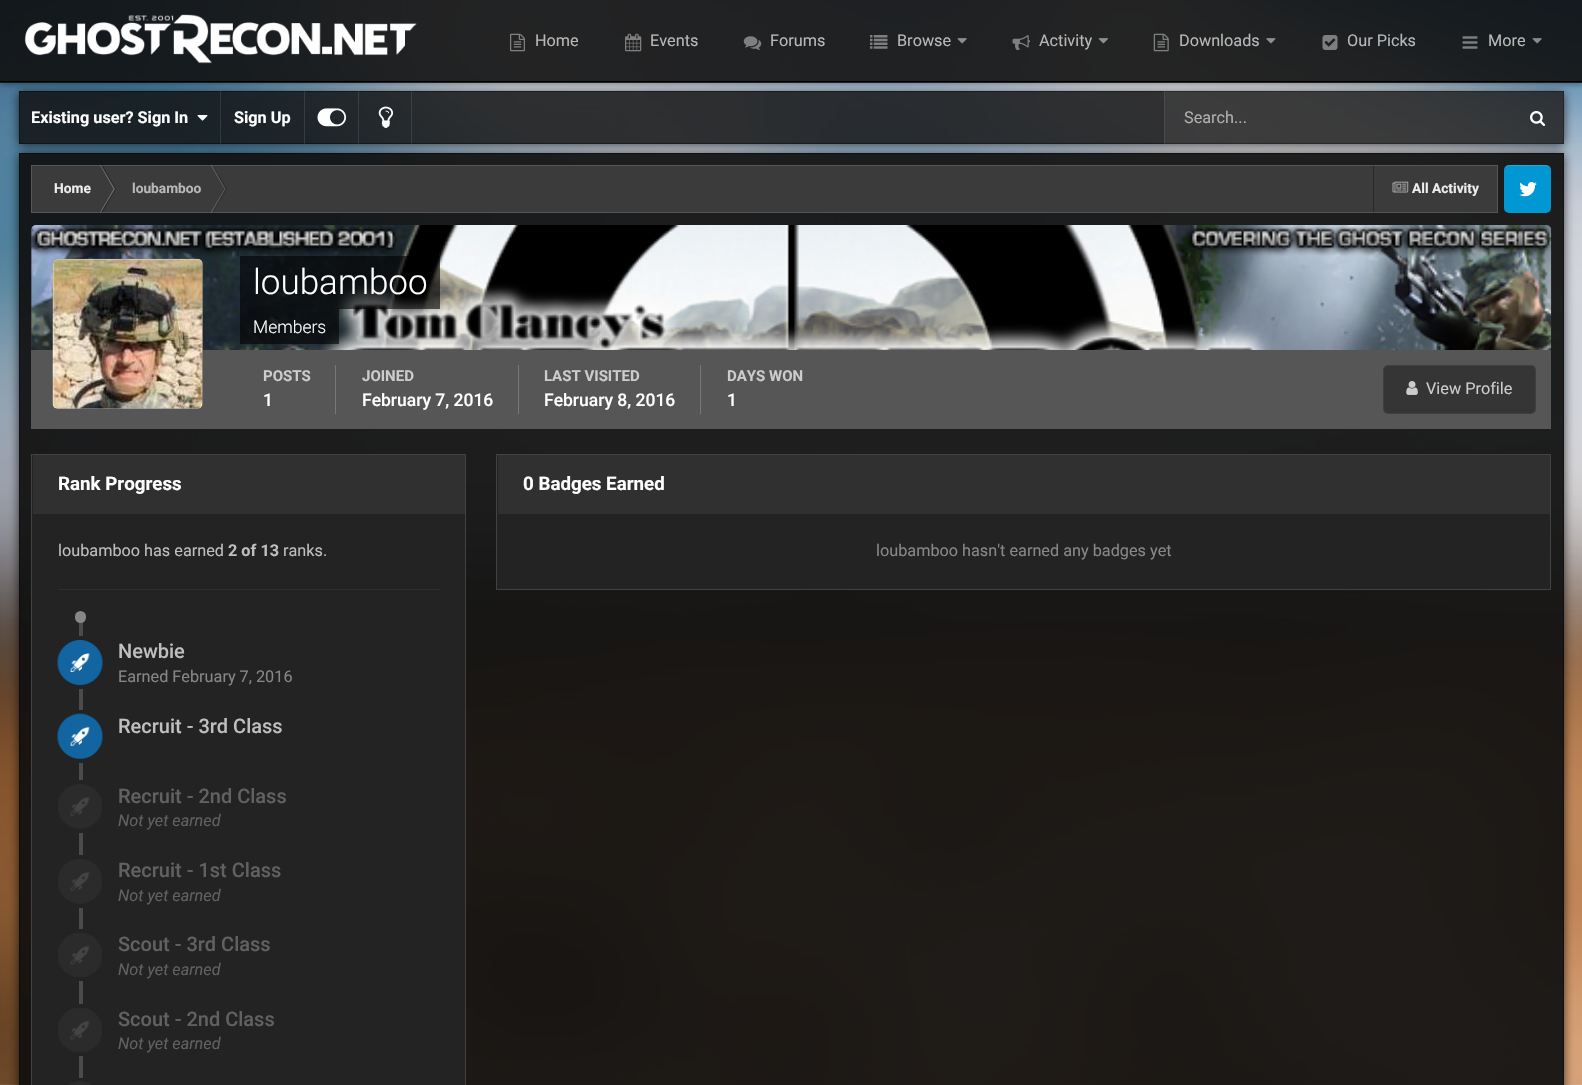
void draw(SkCanvas* canvas) {
  SkPaint paint;
  paint.setAntiAlias(true);
  auto face = [&](const char* family, int weight, float size, bool italic = false) {
    SkFontStyle style(weight, SkFontStyle::kNormal_Width,
      italic ? SkFontStyle::kItalic_Slant : SkFontStyle::kUpright_Slant);
    SkFont result(fontMgr->matchFamilyStyle(family, style), size);
    result.setSubpixel(true);
    return result;
  };
  auto paste = [&](const char* path, float x, float y, float w, float h) {
    auto image = SkImages::DeferredFromEncodedData(SkData::MakeFromFileName(path));
    canvas->drawImageRect(image, SkRect::MakeXYWH(x, y, w, h), SkSamplingOptions());
  };
  auto shape = [&](const char* data, bool evenOdd = false) {
    SkPath result = *SkParsePath::FromSVGString(data);
    if (evenOdd) result.setFillType(SkPathFillType::kEvenOdd);
    return result;
  };
  canvas->clear(0xffffffff);
  paste("img/1.png", 0, 0, 1582, 1085);
  canvas->save();
  canvas->clipPath(shape("M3 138H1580V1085H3ZM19 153H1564V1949H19Z", true), true);
  paint.setColor(0xb3000000);
  paint.setMaskFilter(SkMaskFilter::MakeBlur(kNormal_SkBlurStyle, 5));
  canvas->drawRect(SkRect::MakeXYWH(19, 154, 1545, 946), paint);
  paint.setMaskFilter(nullptr);
  canvas->restore();
  paint.setColor(0xed0f0f0f);
  canvas->drawRect(SkRect::MakeXYWH(19, 153, 1545, 932), paint);
  paint.setStroke(true);
  paint.setStrokeWidth(1);
  paint.setColor(0x66000000);
  canvas->drawRect(SkRect::MakeXYWH(19.5f, 153.5f, 1544, 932), paint);
  canvas->save();
  canvas->clipPath(shape("M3 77H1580V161H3ZM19 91H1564V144H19Z", true), true);
  paint.setStroke(false);
  paint.setColor(0xb3000000);
  paint.setMaskFilter(SkMaskFilter::MakeBlur(kNormal_SkBlurStyle, 5));
  canvas->drawRect(SkRect::MakeXYWH(19, 93, 1545, 52), paint);
  paint.setMaskFilter(nullptr);
  canvas->restore();
  paint.setColor(0xd60f0f0f);
  canvas->drawRect(SkRect::MakeXYWH(19, 91, 1545, 53), paint);
  paint.setStroke(true);
  paint.setColor(0x66000000);
  canvas->drawRect(SkRect::MakeXYWH(19.5f, 91.5f, 1544, 52), paint);
  paint.setStroke(false);
  {
    const struct { float x, y, w, h; SkColor color; } items[] = {
      {220, 91, 1, 53, 0x1affffff},
      {304, 91, 1, 53, 0x1affffff},
      {358, 91, 1, 53, 0x1affffff},
      {411, 91, 1, 53, 0x1affffff},
      {1164, 91, 400, 53, 0x0dffffff},
      {1164, 91, 1, 53, 0x14ffffff},
    };
    for (auto [x, y, w, h, color] : items) {
      paint.setColor(color);
      canvas->drawRect(SkRect::MakeXYWH(x, y, w, h), paint);
    }
  }
  canvas->save();
  canvas->clipPath(shape("M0 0H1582V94H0ZM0 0H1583V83H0Z", true), true);
  paint.setColor(0x66000000);
  paint.setMaskFilter(SkMaskFilter::MakeBlur(kNormal_SkBlurStyle, 3));
  canvas->drawRect(SkRect::MakeXYWH(0, 1, 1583, 83), paint);
  paint.setMaskFilter(nullptr);
  canvas->restore();
  paint.setColor(0xe60f0f0f);
  canvas->drawRect(SkRect::MakeXYWH(0, 0, 1582, 83), paint);
  paint.setColor(0xff000000);
  canvas->drawRect(SkRect::MakeXYWH(0, 81, 1582, 1), paint);
  paste("img/2.png", 24, 14, 393, 50);
  paste("img/3.png", 510, 33, 15, 19);
  paste("img/4.png", 625, 33, 17, 19);
  paste("img/5.png", 743, 36, 19, 14);
  paste("img/6.png", 870, 35, 18, 14);
  paste("img/7.png", 957, 38, 10, 6);
  paste("img/8.png", 1012, 35, 18, 15);
  paste("img/9.png", 1098, 38, 10, 6);
  paste("img/10.png", 1153, 33, 16, 19);
  paste("img/11.png", 1266, 38, 10, 6);
  paste("img/12.png", 1322, 35, 16, 15);
  paste("img/13.png", 1462, 36, 16, 13);
  paste("img/14.png", 1532, 38, 10, 6);
  paste("img/15.png", 197, 115, 11, 6);
  paste("img/16.png", 317, 108, 30, 19);
  paste("img/17.png", 378, 106, 15, 22);
  paste("img/18.png", 1530, 111, 16, 15);
  paint.setColor(0xff3b3b3b);
  canvas->drawRect(SkRect::MakeXYWH(31, 165, 1467, 48), paint);
  paint.setColor(0xff6c6c6c);
  canvas->drawPath(shape("M100 165H101L115 189H113.5Z"), paint);
  paint.setColor(0x4d000000);
  canvas->drawPath(shape("M101 165H102.5L116 189H115Z"), paint);
  paint.setColor(0xff6c6c6c);
  canvas->drawPath(shape("M100 212.5H101L115 189H113.5Z"), paint);
  paint.setColor(0x4d000000);
  canvas->drawPath(shape("M101 212.5H102.5L116 189H115Z"), paint);
  paint.setColor(0xff5d5d5d);
  canvas->drawPath(shape("M210.5 165H212L225.5 189H224.5Z"), paint);
  paint.setColor(0x4d121212);
  canvas->drawPath(shape("M212 165H213L227 189H225.5Z"), paint);
  paint.setColor(0xff5d5d5d);
  canvas->drawPath(shape("M210.5 212.5H212L225.5 189H224.5Z"), paint);
  paint.setColor(0x4d121212);
  canvas->drawPath(shape("M212 212.5H213L227 189H225.5Z"), paint);
  paint.setColor(0xff292929);
  canvas->drawRect(SkRect::MakeXYWH(1373, 165, 1, 48), paint);
  paste("img/19.png", 1392, 181, 17, 12);
  paint.setStroke(true);
  paint.setColor(0x33bfbfbf);
  canvas->drawRect(SkRect::MakeXYWH(31.5f, 165.5f, 1466, 47), paint);
  paint.setStroke(false);
  paint.setColor(0xff0097d3);
  canvas->drawRoundRect(SkRect::MakeXYWH(1504, 165, 47, 48), 5, 5, paint);
  paint.setColor(0x26ffffff);
  canvas->drawPath(shape("M1509 166C1506 166 1504 168 1504 171C1504 164 1510 165 1515 165H1540C1545 165 1551 164 1551 171C1551 168 1549 166 1546 166Z"), paint);
  paste("img/20.png", 1519, 182, 18, 15);
  paint.setColor(0xff333333);
  canvas->drawPath(shape("M36 225H1546C1549 225 1551 227 1551 230V350H31V230C31 227 33 225 36 225Z"), paint);
  paste("img/21.png", 31, 225, 1521, 125);
  paint.setColor(0xff565656);
  canvas->drawRect(SkRect::MakeXYWH(31, 350, 1520, 79), paint);
  paint.setColor(0xff232323);
  canvas->drawRoundRect(SkRect::MakeXYWH(53, 259, 150, 150), 5, 5, paint);
  paste("img/22.png", 52, 258, 151, 151);
  paint.setStroke(true);
  paint.setColor(0x4dffffff);
  canvas->drawRoundRect(SkRect::MakeXYWH(53.5f, 259.5f, 149, 149), 4.5f, 4.5f, paint);
  paint.setStroke(false);
  {
    const struct { float x, y, w, h; SkColor color; } items[] = {
      {240, 256, 200, 53, 0x99000000},
      {240, 309, 99, 35, 0x99000000},
      {335, 365, 1, 49, 0xff787878},
      {518, 365, 1, 49, 0xff787878},
      {700, 365, 1, 49, 0xff787878},
    };
    for (auto [x, y, w, h, color] : items) {
      paint.setColor(color);
      canvas->drawRect(SkRect::MakeXYWH(x, y, w, h), paint);
    }
  }
  paint.setColor(0xff353535);
  canvas->drawRoundRect(SkRect::MakeXYWH(1383, 365, 153, 49), 5, 5, paint);
  paint.setStroke(true);
  paint.setColor(0x12cccccc);
  canvas->drawRoundRect(SkRect::MakeXYWH(1383.5f, 365.5f, 152, 48), 4.5f, 4.5f, paint);
  paste("img/23.png", 1406, 381, 12, 14);
  paint.setStroke(false);
  paint.setColor(0xff232323);
  canvas->drawRect(SkRect::MakeXYWH(31.5f, 454.5f, 434, 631), paint);
  paint.setStroke(true);
  paint.setColor(0xff424242);
  canvas->drawRect(SkRect::MakeXYWH(31.5f, 454.5f, 434, 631), paint);
  paint.setStroke(false);
  {
    const struct { float x, y, w, h; SkColor color; } items[] = {
      {33, 455, 432, 59, 0xff303030},
      {58, 589, 382, 1, 0xff2f2f2f},
      {79, 615, 4, 470, 0xff4b4b4b},
    };
    for (auto [x, y, w, h, color] : items) {
      paint.setColor(color);
      canvas->drawRect(SkRect::MakeXYWH(x, y, w, h), paint);
    }
  }
  paint.setColor(0xff878787);
  canvas->drawRoundRect(SkRect::MakeXYWH(75, 611, 11, 12), 5.5f, 5.5f, paint);
  paint.setColor(0xff232323);
  canvas->drawRect(SkRect::MakeXYWH(79, 636, 4, 53), paint);
  paste("img/24.png", 57, 640, 46, 45);
  canvas->drawRect(SkRect::MakeXYWH(79, 710, 4, 53), paint);
  paste("img/25.png", 57, 713, 46, 46);
  canvas->drawRect(SkRect::MakeXYWH(79, 780, 4, 53), paint);
  paste("img/26.png", 58, 784, 44, 45);
  canvas->drawRect(SkRect::MakeXYWH(79, 855, 4, 53), paint);
  paste("img/26.png", 58, 859, 44, 45);
  canvas->drawRect(SkRect::MakeXYWH(79, 929, 4, 52), paint);
  paste("img/27.png", 58, 933, 44, 44);
  canvas->drawRect(SkRect::MakeXYWH(79, 1004, 4, 52), paint);
  paste("img/27.png", 58, 1008, 44, 44);
  canvas->drawRect(SkRect::MakeXYWH(79, 1078, 4, 7), paint);
  paste("img/28.png", 68, 1081, 23, 4);
  canvas->drawRect(SkRect::MakeXYWH(496.5f, 454.5f, 1054, 135), paint);
  paint.setStroke(true);
  paint.setColor(0xff424242);
  canvas->drawRect(SkRect::MakeXYWH(496.5f, 454.5f, 1054, 135), paint);
  paint.setStroke(false);
  paint.setColor(0xff303030);
  canvas->drawRect(SkRect::MakeXYWH(498, 455, 1052, 59), paint);
  auto f0 = face("Roboto", 400, 16.25f);
  paint.setColor(0xffb8b8b8);
  {
    const struct { const char* s; float x, y; } items[] = {
      {"Home", 535, 46},
      {"Events", 650, 46},
      {"Forums", 770, 46},
      {"Browse", 897, 46},
      {"Activity", 1039, 46},
      {"Downloads", 1179, 46},
      {"Our Picks", 1347, 46},
      {"More", 1488, 46},
    };
    for (auto [s, x, y] : items) {
      canvas->drawString(s, x, y, f0, paint);
    }
  }
  auto f1 = face("Roboto", 700, 16.25f);
  paint.setColor(0xffffffff);
  canvas->drawString("Existing user? Sign In", 31, 123, f1, paint);
  canvas->drawString("Sign Up", 234, 123, f1, paint);
  paint.setColor(0xffb0b0b1);
  canvas->drawString("Search...", 1184, 123, f0, paint);
  auto f2 = face("Roboto", 700, 13.75f);
  paint.setColor(0xffededed);
  canvas->drawString("Home", 54, 193, f2, paint);
  paint.setColor(0xffb8b8b8);
  canvas->drawString("loubamboo", 132, 193, f2, paint);
  paint.setColor(0xffededed);
  canvas->drawString("All Activity", 1412, 193, f2, paint);
  auto f3 = face("Roboto", 300, 35);
  paint.setColor(0xffffffff);
  canvas->drawString("loubamboo", 253, 294, f3, paint);
  auto f4 = face("Roboto", 300, 17.5f);
  canvas->drawString("Members", 253, 333, f4, paint);
  auto f5 = face("Roboto", 700, 15);
  paint.setColor(0xffcccccc);
  canvas->drawString("POSTS", 263, 381, f5, paint);
  auto f6 = face("Roboto", 500, 17.5f);
  paint.setColor(0xffffffff);
  canvas->drawString("1", 263, 406, f6, paint);
  paint.setColor(0xffcccccc);
  canvas->drawString("JOINED", 362, 381, f5, paint);
  paint.setColor(0xffffffff);
  canvas->drawString("February 7, 2016", 362, 406, f6, paint);
  paint.setColor(0xffcccccc);
  canvas->drawString("LAST VISITED", 544, 381, f5, paint);
  paint.setColor(0xffffffff);
  canvas->drawString("February 8, 2016", 544, 406, f6, paint);
  paint.setColor(0xffcccccc);
  canvas->drawString("DAYS WON", 727, 381, f5, paint);
  paint.setColor(0xffffffff);
  canvas->drawString("1", 727, 406, f6, paint);
  paint.setColor(0xffcccccc);
  canvas->drawString("View Profile", 1426, 394, f0, paint);
  auto f7 = face("Roboto", 700, 18.75f);
  paint.setColor(0xffffffff);
  canvas->drawString("Rank Progress", 58, 490, f7, paint);
  paint.setColor(0xffbfbfbf);
  canvas->drawString("loubamboo has earned", 58, 556, f0, paint);
  canvas->drawString("2 of 13", 228, 556, f1, paint);
  canvas->drawString("ranks.", 283, 556, f0, paint);
  auto f8 = face("Roboto", 500, 20);
  canvas->drawString("Newbie", 118, 658, f8, paint);
  paint.setColor(0xff878787);
  canvas->drawString("Earned February 7, 2016", 118, 682, f0, paint);
  paint.setColor(0xffbfbfbf);
  canvas->drawString("Recruit - 3rd Class", 118, 733, f8, paint);
  paint.setColor(0xff616161);
  canvas->drawString("Recruit - 2nd Class", 118, 803, f8, paint);
  auto f9 = face("Roboto", 400, 16.25f, true);
  canvas->drawString("Not yet earned", 118, 826, f9, paint);
  canvas->drawString("Recruit - 1st Class", 118, 877, f8, paint);
  canvas->drawString("Not yet earned", 118, 901, f9, paint);
  canvas->drawString("Scout - 3rd Class", 118, 951, f8, paint);
  canvas->drawString("Not yet earned", 118, 975, f9, paint);
  canvas->drawString("Scout - 2nd Class", 118, 1026, f8, paint);
  canvas->drawString("Not yet earned", 118, 1049, f9, paint);
  paint.setColor(0xffffffff);
  canvas->drawString("0 Badges Earned", 523, 490, f7, paint);
  paint.setColor(0xff878787);
  canvas->drawString("loubamboo hasn't earned any badges yet", 876, 556, f0, paint);
}
